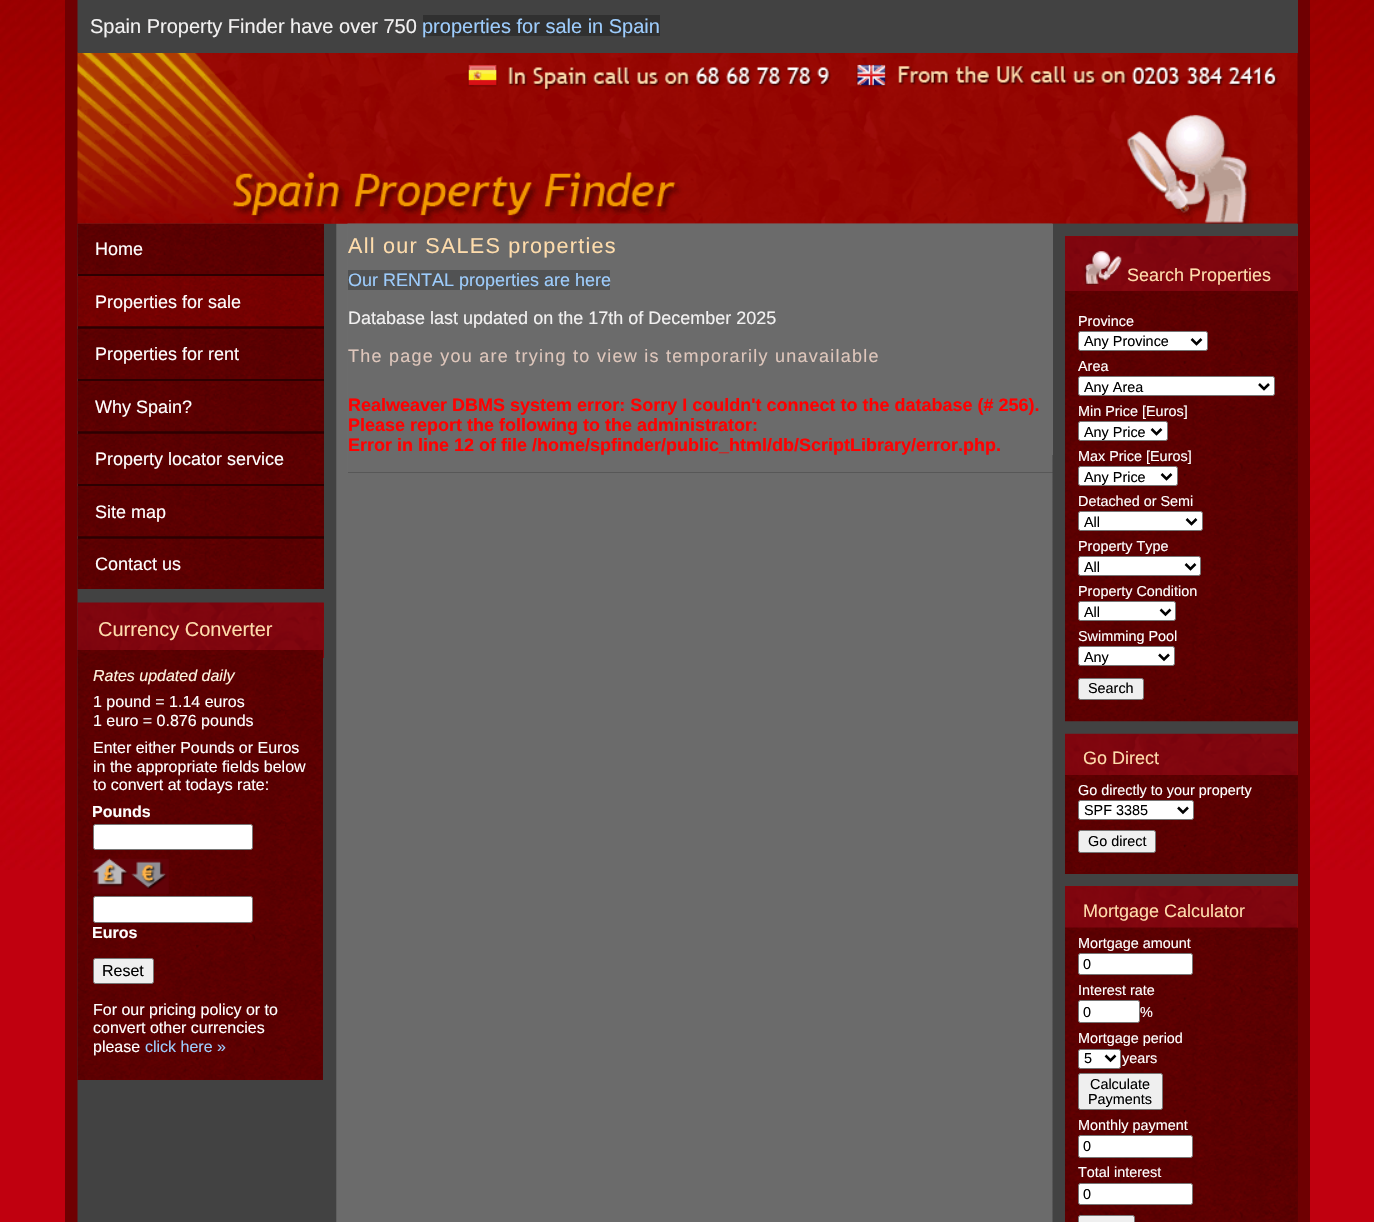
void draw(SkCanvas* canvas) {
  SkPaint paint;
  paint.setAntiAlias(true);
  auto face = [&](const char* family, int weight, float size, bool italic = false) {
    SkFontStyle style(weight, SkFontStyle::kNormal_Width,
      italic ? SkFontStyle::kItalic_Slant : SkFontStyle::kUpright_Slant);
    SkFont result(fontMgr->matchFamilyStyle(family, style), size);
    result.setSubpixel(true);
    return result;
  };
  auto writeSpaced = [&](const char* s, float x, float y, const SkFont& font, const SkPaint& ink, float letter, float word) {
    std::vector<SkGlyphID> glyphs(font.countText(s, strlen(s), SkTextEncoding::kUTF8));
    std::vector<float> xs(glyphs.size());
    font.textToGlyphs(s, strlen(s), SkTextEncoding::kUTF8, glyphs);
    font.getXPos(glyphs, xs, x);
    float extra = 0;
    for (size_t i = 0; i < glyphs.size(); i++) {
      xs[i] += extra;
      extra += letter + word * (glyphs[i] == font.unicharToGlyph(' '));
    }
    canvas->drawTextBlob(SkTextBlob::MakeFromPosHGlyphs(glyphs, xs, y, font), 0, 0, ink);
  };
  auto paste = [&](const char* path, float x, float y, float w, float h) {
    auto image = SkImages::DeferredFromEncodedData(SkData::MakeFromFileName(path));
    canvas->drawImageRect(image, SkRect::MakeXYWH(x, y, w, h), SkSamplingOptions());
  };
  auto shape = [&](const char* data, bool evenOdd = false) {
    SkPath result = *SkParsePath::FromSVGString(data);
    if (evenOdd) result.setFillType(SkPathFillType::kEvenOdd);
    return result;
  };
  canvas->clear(0xffc0000f);
  paste("img/1.png", 0, 0, 1374, 870);
  paste("img/2.png", 65, 223, 1245, 999);
  paste("img/3.png", 65, 0, 1245, 224);
  {
    const struct { float x, y, w, h; SkColor color; } items[] = {
      {78, 0, 1220, 53, 0xff424242},
      {423, 15, 237, 21, 0xff303030},
      {78, 274, 246, 265, 0xff2c0001},
      {78, 224, 246, 50, 0xff5c0001},
    };
    for (auto [x, y, w, h, color] : items) {
      paint.setColor(color);
      canvas->drawRect(SkRect::MakeXYWH(x, y, w, h), paint);
    }
  }
  paste("img/4.png", 77, 223, 247, 51);
  paint.setColor(0xff7c0102);
  canvas->drawRect(SkRect::MakeXYWH(78, 276, 246, 50), paint);
  paste("img/5.png", 77, 276, 247, 51);
  paint.setColor(0xff5c0001);
  canvas->drawRect(SkRect::MakeXYWH(78, 329, 246, 50), paint);
  paste("img/6.png", 77, 328, 247, 51);
  canvas->drawRect(SkRect::MakeXYWH(78, 381, 246, 50), paint);
  paste("img/7.png", 77, 381, 247, 51);
  canvas->drawRect(SkRect::MakeXYWH(78, 434, 246, 50), paint);
  paste("img/6.png", 77, 433, 247, 51);
  canvas->drawRect(SkRect::MakeXYWH(78, 486, 246, 50), paint);
  paste("img/7.png", 77, 486, 247, 51);
  canvas->drawRect(SkRect::MakeXYWH(78, 539, 246, 50), paint);
  paste("img/6.png", 77, 538, 247, 51);
  paint.setColor(0xff940602);
  canvas->drawRect(SkRect::MakeXYWH(323, 603, 1, 55), paint);
  paste("img/8.png", 77, 602, 247, 56);
  paint.setColor(0xff5c0001);
  canvas->drawRect(SkRect::MakeXYWH(322, 650, 1, 430), paint);
  paste("img/9.png", 77, 650, 246, 430);
  paint.setColor(0xffffffff);
  canvas->drawRoundRect(SkRect::MakeXYWH(93.5f, 824.5f, 159, 25), 2, 2, paint);
  paint.setStroke(true);
  paint.setStrokeWidth(1);
  paint.setColor(0xff767676);
  canvas->drawRoundRect(SkRect::MakeXYWH(93.5f, 824.5f, 159, 25), 2, 2, paint);
  paste("img/10.png", 92, 858, 77, 36);
  paint.setStroke(false);
  paint.setColor(0xffffffff);
  canvas->drawRoundRect(SkRect::MakeXYWH(93.5f, 896.5f, 159, 26), 2, 2, paint);
  paint.setStroke(true);
  paint.setColor(0xff767676);
  canvas->drawRoundRect(SkRect::MakeXYWH(93.5f, 896.5f, 159, 26), 2, 2, paint);
  paint.setStroke(false);
  paint.setColor(0xffefefef);
  canvas->drawRoundRect(SkRect::MakeXYWH(93.5f, 958.5f, 60, 25), 2, 2, paint);
  paint.setStroke(true);
  paint.setColor(0xff767676);
  canvas->drawRoundRect(SkRect::MakeXYWH(93.5f, 958.5f, 60, 25), 2, 2, paint);
  paint.setStroke(false);
  paint.setColor(0xff424242);
  canvas->drawRect(SkRect::MakeXYWH(348, 472, 705, 1), paint);
  paste("img/11.png", 347, 223, 951, 250);
  paint.setColor(0xff6b6b6b);
  canvas->drawRect(SkRect::MakeXYWH(1052, 224, 1, 231), paint);
  paste("img/12.png", 347, 223, 706, 1);
  {
    const struct { float x, y, w, h; SkColor color; } items[] = {
      {348, 270, 262, 20, 0xff515253},
      {1297, 224, 1, 662, 0xff424242},
      {1065, 236, 233, 55, 0xff940602},
    };
    for (auto [x, y, w, h, color] : items) {
      paint.setColor(color);
      canvas->drawRect(SkRect::MakeXYWH(x, y, w, h), paint);
    }
  }
  paste("img/13.png", 1065, 236, 233, 55);
  paste("img/14.png", 1082, 251, 40, 34);
  paint.setColor(0xff5c0001);
  canvas->drawRect(SkRect::MakeXYWH(1065, 291, 233, 430), paint);
  paste("img/15.png", 1065, 291, 233, 431);
  paint.setColor(0xffffffff);
  canvas->drawRoundRect(SkRect::MakeXYWH(1078.5f, 331.5f, 129, 19), 2, 2, paint);
  paint.setStroke(true);
  paint.setColor(0xff767676);
  canvas->drawRoundRect(SkRect::MakeXYWH(1078.5f, 331.5f, 129, 19), 2, 2, paint);
  paint.setStrokeWidth(2.5f);
  paint.setColor(0xff000000);
  canvas->drawPath(shape("M1191.5 339L1196.5 344L1201.5 339"), paint);
  paint.setStroke(false);
  paint.setColor(0xffffffff);
  canvas->drawRoundRect(SkRect::MakeXYWH(1078.5f, 376.5f, 196, 19), 2, 2, paint);
  paint.setStroke(true);
  paint.setStrokeWidth(1);
  paint.setColor(0xff767676);
  canvas->drawRoundRect(SkRect::MakeXYWH(1078.5f, 376.5f, 196, 19), 2, 2, paint);
  paint.setStrokeWidth(2.5f);
  paint.setColor(0xff000000);
  canvas->drawPath(shape("M1259 384L1264 389L1269 384"), paint);
  paint.setStroke(false);
  paint.setColor(0xffffffff);
  canvas->drawRoundRect(SkRect::MakeXYWH(1078.5f, 421.5f, 89, 19), 2, 2, paint);
  paint.setStroke(true);
  paint.setStrokeWidth(1);
  paint.setColor(0xff767676);
  canvas->drawRoundRect(SkRect::MakeXYWH(1078.5f, 421.5f, 89, 19), 2, 2, paint);
  paint.setStrokeWidth(2.5f);
  paint.setColor(0xff000000);
  canvas->drawPath(shape("M1151.5 429L1156.5 434L1161.5 429"), paint);
  paint.setStroke(false);
  paint.setColor(0xffffffff);
  canvas->drawRoundRect(SkRect::MakeXYWH(1078.5f, 466.5f, 99, 19), 2, 2, paint);
  paint.setStroke(true);
  paint.setStrokeWidth(1);
  paint.setColor(0xff767676);
  canvas->drawRoundRect(SkRect::MakeXYWH(1078.5f, 466.5f, 99, 19), 2, 2, paint);
  paint.setStrokeWidth(2.5f);
  paint.setColor(0xff000000);
  canvas->drawPath(shape("M1161.5 474L1166.5 479L1171.5 474"), paint);
  paint.setStroke(false);
  paint.setColor(0xffffffff);
  canvas->drawRoundRect(SkRect::MakeXYWH(1078.5f, 511.5f, 124, 19), 2, 2, paint);
  paint.setStroke(true);
  paint.setStrokeWidth(1);
  paint.setColor(0xff767676);
  canvas->drawRoundRect(SkRect::MakeXYWH(1078.5f, 511.5f, 124, 19), 2, 2, paint);
  paint.setStrokeWidth(2.5f);
  paint.setColor(0xff000000);
  canvas->drawPath(shape("M1186.5 519L1191.5 524L1196.5 519"), paint);
  paint.setStroke(false);
  paint.setColor(0xffffffff);
  canvas->drawRoundRect(SkRect::MakeXYWH(1078.5f, 556.5f, 122, 19), 2, 2, paint);
  paint.setStroke(true);
  paint.setStrokeWidth(1);
  paint.setColor(0xff767676);
  canvas->drawRoundRect(SkRect::MakeXYWH(1078.5f, 556.5f, 122, 19), 2, 2, paint);
  paint.setStrokeWidth(2.5f);
  paint.setColor(0xff000000);
  canvas->drawPath(shape("M1185.5 564L1190.5 569L1195.5 564"), paint);
  paint.setStroke(false);
  paint.setColor(0xffffffff);
  canvas->drawRoundRect(SkRect::MakeXYWH(1078.5f, 601.5f, 97, 19), 2, 2, paint);
  paint.setStroke(true);
  paint.setStrokeWidth(1);
  paint.setColor(0xff767676);
  canvas->drawRoundRect(SkRect::MakeXYWH(1078.5f, 601.5f, 97, 19), 2, 2, paint);
  paint.setStrokeWidth(2.5f);
  paint.setColor(0xff000000);
  canvas->drawPath(shape("M1160.5 609.5L1165.5 614.5L1170.5 609.5"), paint);
  paint.setStroke(false);
  paint.setColor(0xffffffff);
  canvas->drawRoundRect(SkRect::MakeXYWH(1078.5f, 646.5f, 96, 19), 2, 2, paint);
  paint.setStroke(true);
  paint.setStrokeWidth(1);
  paint.setColor(0xff767676);
  canvas->drawRoundRect(SkRect::MakeXYWH(1078.5f, 646.5f, 96, 19), 2, 2, paint);
  paint.setStrokeWidth(2.5f);
  paint.setColor(0xff000000);
  canvas->drawPath(shape("M1159 654.5L1164 659.5L1169 654.5"), paint);
  paint.setStroke(false);
  paint.setColor(0xffefefef);
  canvas->drawRoundRect(SkRect::MakeXYWH(1078.5f, 678.5f, 65, 21), 2, 2, paint);
  paint.setStroke(true);
  paint.setStrokeWidth(1);
  paint.setColor(0xff767676);
  canvas->drawRoundRect(SkRect::MakeXYWH(1078.5f, 678.5f, 65, 21), 2, 2, paint);
  paint.setStroke(false);
  paint.setColor(0xff940602);
  canvas->drawRect(SkRect::MakeXYWH(1297, 734, 1, 41), paint);
  paste("img/16.png", 1065, 733, 233, 42);
  paint.setColor(0xff5c0001);
  canvas->drawRect(SkRect::MakeXYWH(1065, 775, 233, 99), paint);
  paste("img/17.png", 1065, 775, 233, 99);
  paint.setColor(0xffffffff);
  canvas->drawRoundRect(SkRect::MakeXYWH(1078.5f, 800.5f, 115, 19), 2, 2, paint);
  paint.setStroke(true);
  paint.setColor(0xff767676);
  canvas->drawRoundRect(SkRect::MakeXYWH(1078.5f, 800.5f, 115, 19), 2, 2, paint);
  paint.setStrokeWidth(2.5f);
  paint.setColor(0xff000000);
  canvas->drawPath(shape("M1178 807.5L1183 812.5L1188 807.5"), paint);
  paint.setStroke(false);
  paint.setColor(0xffefefef);
  canvas->drawRoundRect(SkRect::MakeXYWH(1078.5f, 830.5f, 77, 22), 2, 2, paint);
  paint.setStroke(true);
  paint.setStrokeWidth(1);
  paint.setColor(0xff767676);
  canvas->drawRoundRect(SkRect::MakeXYWH(1078.5f, 830.5f, 77, 22), 2, 2, paint);
  paint.setStroke(false);
  paint.setColor(0xff940602);
  canvas->drawRect(SkRect::MakeXYWH(1065, 886, 233, 42), paint);
  paste("img/18.png", 1065, 886, 233, 42);
  paint.setColor(0xff5c0001);
  canvas->drawRect(SkRect::MakeXYWH(1297, 928, 1, 294), paint);
  paste("img/19.png", 1065, 927, 233, 295);
  paint.setColor(0xffffffff);
  canvas->drawRoundRect(SkRect::MakeXYWH(1078.5f, 953.5f, 114, 21), 2, 2, paint);
  paint.setStroke(true);
  paint.setColor(0xff767676);
  canvas->drawRoundRect(SkRect::MakeXYWH(1078.5f, 953.5f, 114, 21), 2, 2, paint);
  paint.setStroke(false);
  paint.setColor(0xffffffff);
  canvas->drawRoundRect(SkRect::MakeXYWH(1078.5f, 1000.5f, 61, 22), 2, 2, paint);
  paint.setStroke(true);
  paint.setColor(0xff767676);
  canvas->drawRoundRect(SkRect::MakeXYWH(1078.5f, 1000.5f, 61, 22), 2, 2, paint);
  paint.setStroke(false);
  paint.setColor(0xffffffff);
  canvas->drawRoundRect(SkRect::MakeXYWH(1078.5f, 1049.5f, 42, 19), 2, 2, paint);
  paint.setStroke(true);
  paint.setColor(0xff767676);
  canvas->drawRoundRect(SkRect::MakeXYWH(1078.5f, 1049.5f, 42, 19), 2, 2, paint);
  paint.setStrokeWidth(2.5f);
  paint.setColor(0xff000000);
  canvas->drawPath(shape("M1105.5 1055.5L1110.5 1060.5L1115.5 1055.5"), paint);
  paint.setStroke(false);
  paint.setColor(0xffefefef);
  canvas->drawRoundRect(SkRect::MakeXYWH(1078.5f, 1073.5f, 84, 36), 2, 2, paint);
  paint.setStroke(true);
  paint.setStrokeWidth(1);
  paint.setColor(0xff767676);
  canvas->drawRoundRect(SkRect::MakeXYWH(1078.5f, 1073.5f, 84, 36), 2, 2, paint);
  paint.setStroke(false);
  paint.setColor(0xffffffff);
  canvas->drawRoundRect(SkRect::MakeXYWH(1078.5f, 1135.5f, 114, 22), 2, 2, paint);
  paint.setStroke(true);
  paint.setColor(0xff767676);
  canvas->drawRoundRect(SkRect::MakeXYWH(1078.5f, 1135.5f, 114, 22), 2, 2, paint);
  paint.setStroke(false);
  paint.setColor(0xffffffff);
  canvas->drawRoundRect(SkRect::MakeXYWH(1078.5f, 1183.5f, 114, 21), 2, 2, paint);
  paint.setStroke(true);
  paint.setColor(0xff767676);
  canvas->drawRoundRect(SkRect::MakeXYWH(1078.5f, 1183.5f, 114, 21), 2, 2, paint);
  paint.setStroke(false);
  paint.setColor(0xffefefef);
  canvas->drawRoundRect(SkRect::MakeXYWH(1078.5f, 1215.5f, 56, 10), 2, 2, paint);
  paint.setStroke(true);
  paint.setColor(0xff767676);
  canvas->drawRoundRect(SkRect::MakeXYWH(1078.5f, 1215.5f, 56, 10), 2, 2, paint);
  auto f0 = face("Liberation Sans", 400, 20);
  paint.setStroke(false);
  paint.setColor(0xfff2f1f1);
  canvas->drawString("Spain Property Finder have over 750", 90, 33, f0, paint);
  paint.setColor(0xff9dccfc);
  canvas->drawString("properties for sale in Spain", 422, 33, f0, paint);
  auto f1 = face("Liberation Sans", 400, 18);
  paint.setColor(0xffffffff);
  {
    const struct { const char* s; float x, y; } items[] = {
      {"Home", 95, 255},
      {"Properties for sale", 95, 308},
      {"Properties for rent", 95, 360},
      {"Why Spain?", 95, 413},
      {"Property locator service", 95, 465},
      {"Site map", 95, 518},
      {"Contact us", 95, 570},
    };
    for (auto [s, x, y] : items) {
      canvas->drawString(s, x, y, f1, paint);
    }
  }
  paint.setColor(0xfffedcac);
  canvas->drawString("Currency Converter", 98, 636, f0, paint);
  auto f2 = face("Liberation Sans", 400, 16, true);
  paint.setColor(0xfffff5df);
  canvas->drawString("Rates updated daily", 93, 681, f2, paint);
  auto f3 = face("Liberation Sans", 400, 16);
  paint.setColor(0xffffffff);
  {
    const struct { const char* s; float x, y; } items[] = {
      {"1 pound = 1.14 euros", 93, 707},
      {"1 euro = 0.876 pounds", 93, 726},
      {"Enter either Pounds or Euros", 93, 753},
      {"in the appropriate fields below", 93, 772},
      {"to convert at todays rate:", 93, 790},
    };
    for (auto [s, x, y] : items) {
      canvas->drawString(s, x, y, f3, paint);
    }
  }
  auto f4 = face("Liberation Sans", 700, 16);
  canvas->drawString("Pounds", 92, 817, f4, paint);
  canvas->drawString("Euros", 92, 938, f4, paint);
  paint.setColor(0xff000000);
  canvas->drawString("Reset", 102, 976, f3, paint);
  paint.setColor(0xffffffff);
  {
    const struct { const char* s; float x, y; } items[] = {
      {"For our pricing policy or to", 93, 1015},
      {"convert other currencies", 93, 1033},
      {"please", 93, 1052},
    };
    for (auto [s, x, y] : items) {
      canvas->drawString(s, x, y, f3, paint);
    }
  }
  paint.setColor(0xff9dccfc);
  canvas->drawString("click here »", 145, 1052, f3, paint);
  auto f5 = face("Liberation Sans", 400, 21.6f);
  paint.setColor(0xfffedcac);
  writeSpaced("All our SALES properties", 348, 253, f5, paint, 1.25f, 0);
  paint.setColor(0xff9dccfc);
  canvas->drawString("Our RENTAL properties are here", 348, 286, f1, paint);
  paint.setColor(0xfff2f1f1);
  canvas->drawString("Database last updated on the 17th of December 2025", 348, 324, f1, paint);
  paint.setColor(0xffdec6bb);
  writeSpaced("The page you are trying to view is temporarily unavailable", 348, 362, f1, paint, 1.25f, 0);
  auto f6 = face("Liberation Sans", 700, 18);
  paint.setColor(0xffff0000);
  {
    const struct { const char* s; float x, y; } items[] = {
      {"Realweaver DBMS system error: Sorry I couldn't connect to the database (# 256).", 348, 411},
      {"Please report the following to the administrator:", 348, 431},
      {"Error in line 12 of file /home/spfinder/public_html/db/ScriptLibrary/error.php.", 348, 451},
    };
    for (auto [s, x, y] : items) {
      canvas->drawString(s, x, y, f6, paint);
    }
  }
  paint.setColor(0xfffedcac);
  canvas->drawString("Search Properties", 1127, 281, f1, paint);
  auto f7 = face("Liberation Sans", 400, 14.4f);
  paint.setColor(0xffffffff);
  canvas->drawString("Province", 1078, 326, f7, paint);
  paint.setColor(0xff000000);
  canvas->drawString("Any Province", 1084, 346, f7, paint);
  paint.setColor(0xffffffff);
  canvas->drawString("Area", 1078, 371, f7, paint);
  paint.setColor(0xff000000);
  canvas->drawString("Any Area", 1084, 392, f7, paint);
  paint.setColor(0xffffffff);
  canvas->drawString("Min Price [Euros]", 1078, 416, f7, paint);
  paint.setColor(0xff000000);
  canvas->drawString("Any Price", 1084, 437, f7, paint);
  paint.setColor(0xffffffff);
  canvas->drawString("Max Price [Euros]", 1078, 461, f7, paint);
  paint.setColor(0xff000000);
  canvas->drawString("Any Price", 1084, 482, f7, paint);
  paint.setColor(0xffffffff);
  canvas->drawString("Detached or Semi", 1078, 506, f7, paint);
  paint.setColor(0xff000000);
  canvas->drawString("All", 1084, 527, f7, paint);
  paint.setColor(0xffffffff);
  canvas->drawString("Property Type", 1078, 551, f7, paint);
  paint.setColor(0xff000000);
  canvas->drawString("All", 1084, 572, f7, paint);
  paint.setColor(0xffffffff);
  canvas->drawString("Property Condition", 1078, 596, f7, paint);
  paint.setColor(0xff000000);
  canvas->drawString("All", 1084, 617, f7, paint);
  paint.setColor(0xffffffff);
  canvas->drawString("Swimming Pool", 1078, 641, f7, paint);
  paint.setColor(0xff000000);
  canvas->drawString("Any", 1084, 662, f7, paint);
  canvas->drawString("Search", 1088, 693, f7, paint);
  paint.setColor(0xfffedcac);
  canvas->drawString("Go Direct", 1083, 764, f1, paint);
  paint.setColor(0xffffffff);
  canvas->drawString("Go directly to your property", 1078, 795, f7, paint);
  paint.setColor(0xff000000);
  canvas->drawString("SPF 3385", 1084, 815, f7, paint);
  canvas->drawString("Go direct", 1088, 846, f7, paint);
  paint.setColor(0xfffedcac);
  canvas->drawString("Mortgage Calculator", 1083, 917, f1, paint);
  paint.setColor(0xffffffff);
  canvas->drawString("Mortgage amount", 1078, 948, f7, paint);
  paint.setColor(0xff000000);
  canvas->drawString("0", 1083, 969, f7, paint);
  paint.setColor(0xffffffff);
  canvas->drawString("Interest rate", 1078, 995, f7, paint);
  paint.setColor(0xff000000);
  canvas->drawString("0", 1083, 1017, f7, paint);
  paint.setColor(0xffffffff);
  canvas->drawString("%", 1140, 1017, f7, paint);
  canvas->drawString("Mortgage period", 1078, 1043, f7, paint);
  paint.setColor(0xff000000);
  canvas->drawString("5", 1084, 1063, f7, paint);
  paint.setColor(0xffffffff);
  canvas->drawString("years", 1122, 1063, f7, paint);
  paint.setColor(0xff000000);
  canvas->drawString("Calculate", 1090, 1089, f7, paint);
  canvas->drawString("Payments", 1088, 1104, f7, paint);
  paint.setColor(0xffffffff);
  canvas->drawString("Monthly payment", 1078, 1130, f7, paint);
  paint.setColor(0xff000000);
  canvas->drawString("0", 1083, 1151, f7, paint);
  paint.setColor(0xffffffff);
  canvas->drawString("Total interest", 1078, 1177, f7, paint);
  paint.setColor(0xff000000);
  canvas->drawString("0", 1083, 1199, f7, paint);
}
